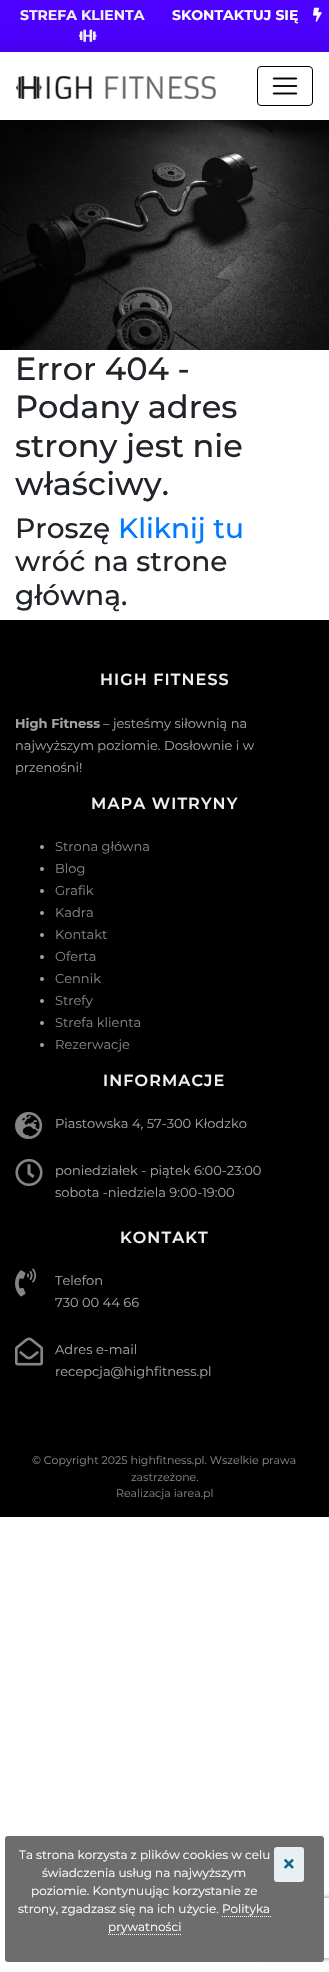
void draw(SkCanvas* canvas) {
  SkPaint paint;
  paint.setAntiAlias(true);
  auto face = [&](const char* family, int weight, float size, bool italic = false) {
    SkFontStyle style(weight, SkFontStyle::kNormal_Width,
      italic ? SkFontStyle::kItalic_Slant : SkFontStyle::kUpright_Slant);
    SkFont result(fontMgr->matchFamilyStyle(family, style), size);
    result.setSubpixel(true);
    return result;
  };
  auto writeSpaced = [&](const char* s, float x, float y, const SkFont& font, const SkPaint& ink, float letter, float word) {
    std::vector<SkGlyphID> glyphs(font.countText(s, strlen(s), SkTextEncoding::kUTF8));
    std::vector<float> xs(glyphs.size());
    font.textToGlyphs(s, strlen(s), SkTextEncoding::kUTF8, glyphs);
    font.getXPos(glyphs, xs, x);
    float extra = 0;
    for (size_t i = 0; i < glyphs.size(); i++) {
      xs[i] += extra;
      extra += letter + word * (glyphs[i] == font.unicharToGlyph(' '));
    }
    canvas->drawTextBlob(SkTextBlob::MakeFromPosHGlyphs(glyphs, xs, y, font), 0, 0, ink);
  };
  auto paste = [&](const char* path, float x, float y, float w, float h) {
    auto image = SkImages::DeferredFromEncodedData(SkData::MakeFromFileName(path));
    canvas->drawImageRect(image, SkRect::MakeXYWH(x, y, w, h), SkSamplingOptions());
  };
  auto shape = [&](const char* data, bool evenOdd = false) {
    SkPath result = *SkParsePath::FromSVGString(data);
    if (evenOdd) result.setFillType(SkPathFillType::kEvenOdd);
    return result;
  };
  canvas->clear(0xffffffff);
  paint.setColor(0xff4c00ff);
  canvas->drawRect(SkRect::MakeXYWH(0, 0, 329, 52), paint);
  paste("img/1.png", 79, 29, 18, 13);
  paste("img/2.png", 313, 7, 9, 15);
  paste("img/5.png", 0, 120, 329, 230);
  canvas->save();
  canvas->clipPath(shape("M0 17H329V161H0ZM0 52H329V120H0Z", true), true);
  paint.setColor(0x21000000);
  paint.setMaskFilter(SkMaskFilter::MakeBlur(kNormal_SkBlurStyle, 10.5f));
  canvas->drawRect(SkRect::MakeXYWH(-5, 50, 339, 78), paint);
  paint.setMaskFilter(nullptr);
  canvas->restore();
  paste("img/3.png", 16, 76, 200, 23);
  paint.setStroke(true);
  paint.setStrokeWidth(1);
  paint.setColor(0xff000000);
  canvas->drawRoundRect(SkRect::MakeXYWH(257.5f, 66.5f, 55, 39), 3.5f, 3.5f, paint);
  paste("img/4.png", 272, 77, 26, 18);
  paint.setStroke(false);
  canvas->drawRect(SkRect::MakeXYWH(0, 620, 329, 897), paint);
  paint.setColor(0xffa3a3a3);
  canvas->drawCircle(42, 847, 2, paint);
  canvas->drawCircle(42, 869, 2, paint);
  canvas->drawCircle(42, 891, 2, paint);
  canvas->drawCircle(42, 913, 2, paint);
  canvas->drawCircle(42, 935, 2, paint);
  canvas->drawCircle(42, 957, 2, paint);
  canvas->drawCircle(42, 979, 2, paint);
  canvas->drawCircle(42, 1001, 2, paint);
  canvas->drawCircle(42, 1023, 2, paint);
  canvas->drawCircle(42, 1045, 2, paint);
  paste("img/6.png", 15, 1111, 28, 29);
  paste("img/7.png", 15, 1159, 28, 27);
  paste("img/8.png", 15, 1268, 22, 29);
  paste("img/9.png", 15, 1337, 28, 29);
  canvas->save();
  canvas->clipPath(shape("M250 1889H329V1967H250ZM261 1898H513C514 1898 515 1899 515 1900V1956C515 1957 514 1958 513 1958H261C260 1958 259 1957 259 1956V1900C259 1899 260 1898 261 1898Z", true), true);
  paint.setColor(0xff808080);
  paint.setMaskFilter(SkMaskFilter::MakeBlur(kNormal_SkBlurStyle, 2.5f));
  canvas->drawRoundRect(SkRect::MakeXYWH(259, 1898, 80, 60), 2, 2, paint);
  paint.setMaskFilter(nullptr);
  canvas->restore();
  paint.setColor(0xff6d6d6d);
  canvas->drawRoundRect(SkRect::MakeXYWH(5, 1836, 319, 126), 3, 3, paint);
  paint.setStroke(true);
  paint.setColor(0xffffffff);
  paint.setPathEffect(SkDashPathEffect::Make({{1, 1}}, 0));
  canvas->drawPath(shape("M222 1916.5H271"), paint);
  paint.setPathEffect(nullptr);
  paint.setPathEffect(SkDashPathEffect::Make({{1, 1}}, 0));
  canvas->drawPath(shape("M108 1934.5H181"), paint);
  paint.setPathEffect(nullptr);
  paint.setStroke(false);
  paint.setColor(0xffe8f0f3);
  canvas->drawRoundRect(SkRect::MakeXYWH(274, 1847, 30, 35), 3, 3, paint);
  paste("img/10.png", 284, 1859, 10, 10);
  auto f0 = face("Montserrat", 700, 14);
  paint.setColor(0xfff1f1f1);
  canvas->drawString("STREFA KLIENTA", 20, 20, f0, paint);
  paint.setColor(0xffffffff);
  canvas->drawString("SKONTAKTUJ SIĘ", 172, 20, f0, paint);
  auto f1 = face("Montserrat", 500, 32);
  paint.setColor(0xff212529);
  {
    const struct { const char* s; float x, y; } items[] = {
      {"Error 404 -", 15, 380},
      {"Podany adres", 15, 418},
      {"strony jest nie", 15, 457},
      {"właściwy.", 15, 495},
    };
    for (auto [s, x, y] : items) {
      canvas->drawString(s, x, y, f1, paint);
    }
  }
  auto f2 = face("Montserrat", 500, 28);
  canvas->drawString("Proszę", 15, 538, f2, paint);
  paint.setColor(0xff007bff);
  canvas->drawString("Kliknij tu", 118, 538, f2, paint);
  paint.setColor(0xff212529);
  canvas->drawString("wróć na strone", 15, 571, f2, paint);
  canvas->drawString("główną.", 15, 605, f2, paint);
  auto f3 = face("Montserrat", 600, 16);
  paint.setColor(0xfff1f1f1);
  writeSpaced("HIGH FITNESS", 100, 685, f3, paint, 1.1f, 0);
  auto f4 = face("Montserrat", 700, 13);
  paint.setColor(0xffa3a3a3);
  canvas->drawString("High Fitness", 15, 728, f4, paint);
  auto f5 = face("Montserrat", 400, 13);
  {
    const struct { const char* s; float x, y; } items[] = {
      {"– jesteśmy siłownią na", 103, 728},
      {"najwyższym poziomie. Dosłownie i w", 15, 750},
      {"przenośni!", 15, 772},
    };
    for (auto [s, x, y] : items) {
      canvas->drawString(s, x, y, f5, paint);
    }
  }
  paint.setColor(0xfff1f1f1);
  writeSpaced("MAPA WITRYNY", 91, 809, f3, paint, 1.1f, 0);
  paint.setColor(0xff858585);
  {
    const struct { const char* s; float x, y; } items[] = {
      {"Strona główna", 55, 851},
      {"Blog", 55, 873},
      {"Grafik", 55, 895},
      {"Kadra", 55, 917},
      {"Kontakt", 55, 939},
      {"Oferta", 55, 961},
      {"Cennik", 55, 983},
      {"Strefy", 55, 1005},
      {"Strefa klienta", 55, 1027},
      {"Rezerwacje", 55, 1049},
    };
    for (auto [s, x, y] : items) {
      canvas->drawString(s, x, y, f5, paint);
    }
  }
  paint.setColor(0xfff1f1f1);
  writeSpaced("INFORMACJE", 103, 1086, f3, paint, 1.1f, 0);
  paint.setColor(0xffa3a3a3);
  {
    const struct { const char* s; float x, y; } items[] = {
      {"Piastowska 4, 57-300 Kłodzko", 55, 1128},
      {"poniedziałek - piątek 6:00-23:00", 55, 1175},
      {"sobota -niedziela 9:00-19:00", 55, 1197},
    };
    for (auto [s, x, y] : items) {
      canvas->drawString(s, x, y, f5, paint);
    }
  }
  paint.setColor(0xfff1f1f1);
  writeSpaced("KONTAKT", 120, 1243, f3, paint, 1.1f, 0);
  paint.setColor(0xffa3a3a3);
  {
    const struct { const char* s; float x, y; } items[] = {
      {"Telefon", 55, 1285},
      {"730 00 44 66", 55, 1307},
      {"Adres e-mail", 55, 1354},
      {"recepcja@highfitness.pl", 55, 1376},
    };
    for (auto [s, x, y] : items) {
      canvas->drawString(s, x, y, f5, paint);
    }
  }
  auto f6 = face("Montserrat", 400, 11);
  paint.setColor(0xff858585);
  {
    const struct { const char* s; float x, y; } items[] = {
      {"© Copyright 2025 highfitness.pl. Wszelkie prawa", 32, 1464},
      {"zastrzeżone.", 131, 1481},
      {"Realizacja iarea.pl", 116, 1497},
    };
    for (auto [s, x, y] : items) {
      canvas->drawString(s, x, y, f6, paint);
    }
  }
  auto f7 = face("Montserrat", 400, 12);
  paint.setColor(0xffffffff);
  {
    const struct { const char* s; float x, y; } items[] = {
      {"Ta strona korzysta z plików cookies w celu", 19, 1859},
      {"świadczenia usług na najwyższym", 42, 1877},
      {"poziomie. Kontynuując korzystanie ze", 31, 1895},
      {"strony, zgadzasz się na ich użycie. Polityka", 18, 1913},
      {"prywatności", 108, 1931},
    };
    for (auto [s, x, y] : items) {
      canvas->drawString(s, x, y, f7, paint);
    }
  }
}
